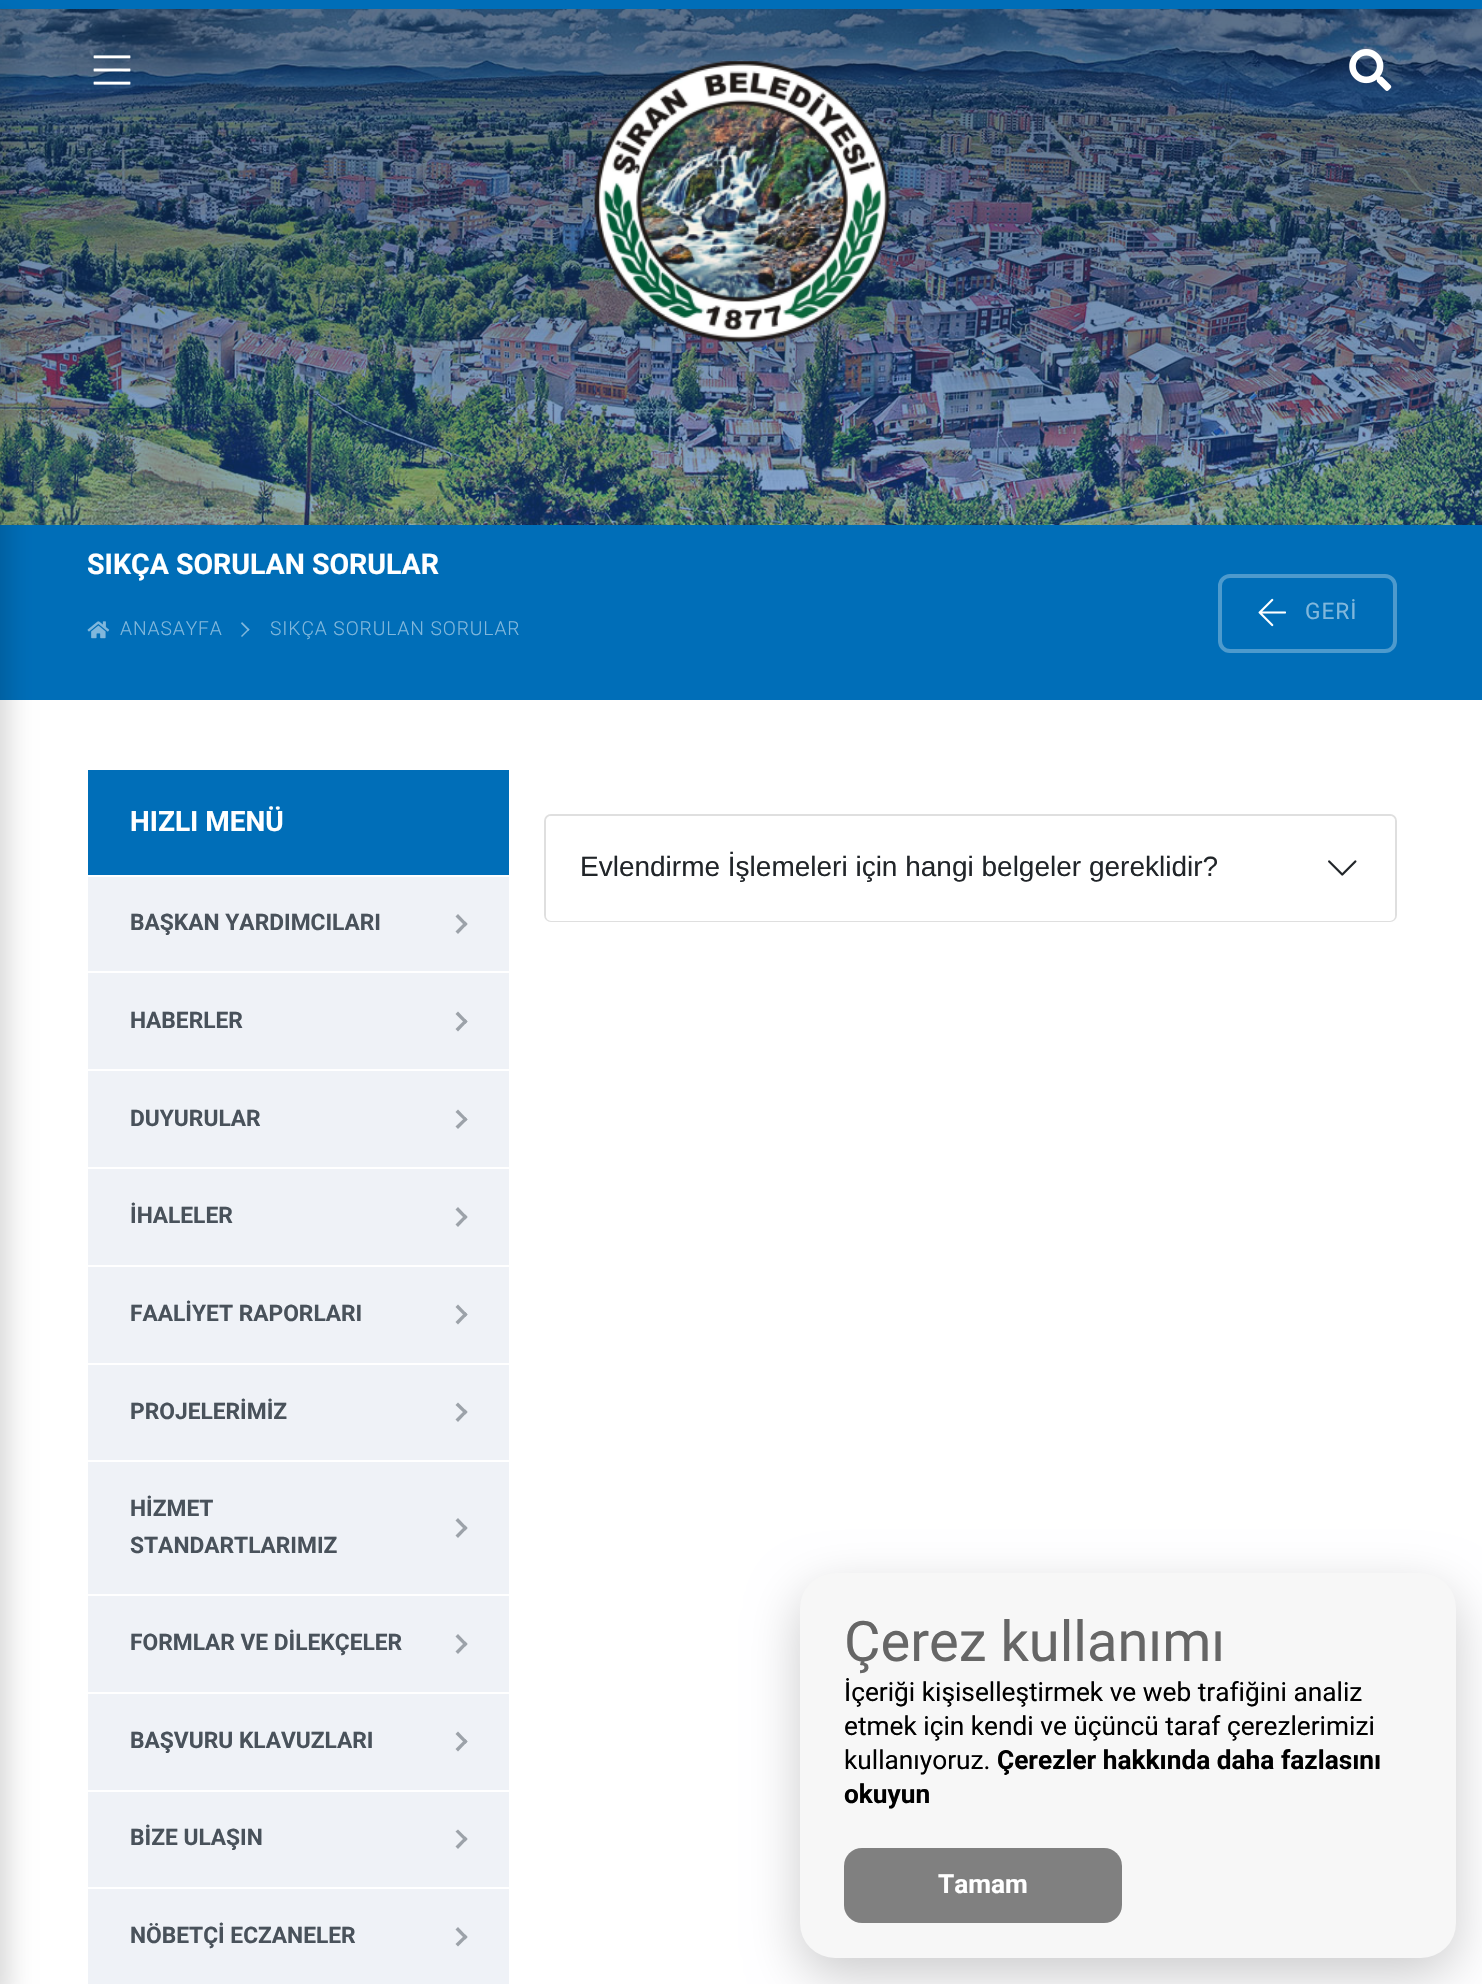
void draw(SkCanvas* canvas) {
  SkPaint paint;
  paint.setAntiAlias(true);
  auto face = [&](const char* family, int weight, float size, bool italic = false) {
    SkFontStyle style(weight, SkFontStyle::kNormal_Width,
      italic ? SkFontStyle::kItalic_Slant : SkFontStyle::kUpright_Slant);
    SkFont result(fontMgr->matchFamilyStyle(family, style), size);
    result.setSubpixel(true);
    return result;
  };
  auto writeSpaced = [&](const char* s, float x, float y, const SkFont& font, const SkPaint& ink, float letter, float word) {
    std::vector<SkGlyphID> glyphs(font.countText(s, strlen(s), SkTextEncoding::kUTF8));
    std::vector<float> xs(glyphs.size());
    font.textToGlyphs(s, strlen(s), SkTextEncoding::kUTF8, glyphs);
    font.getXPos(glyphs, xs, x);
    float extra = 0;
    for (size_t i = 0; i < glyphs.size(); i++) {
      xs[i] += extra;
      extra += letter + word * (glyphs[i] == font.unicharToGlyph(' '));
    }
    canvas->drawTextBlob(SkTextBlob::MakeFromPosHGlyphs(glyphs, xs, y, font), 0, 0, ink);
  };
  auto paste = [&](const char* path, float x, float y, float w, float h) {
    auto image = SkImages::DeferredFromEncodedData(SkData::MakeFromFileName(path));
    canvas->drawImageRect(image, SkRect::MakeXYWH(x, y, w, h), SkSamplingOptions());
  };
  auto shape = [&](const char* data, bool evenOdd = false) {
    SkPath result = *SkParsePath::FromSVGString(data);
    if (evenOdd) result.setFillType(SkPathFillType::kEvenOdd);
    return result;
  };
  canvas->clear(0xffffffff);
  paint.setColor(0xff006eb8);
  canvas->drawRect(SkRect::MakeXYWH(0, 0, 1482, 9), paint);
  paint.setColor(0xff1553a4);
  canvas->drawRect(SkRect::MakeXYWH(0, 9, 1482, 516), paint);
  paste("img/4.png", 0, 9, 1482, 516);
  {
    const SkColor colors[] = {0x59000000, 0x00000000};
    const float stops[] = {0, 1};
    const SkPoint ends[] = {{741, 0}, {741, 525}};
    paint.setShader(SkGradientShader::MakeLinear(ends, colors, stops, 2, SkTileMode::kClamp));
    paint.setAlpha(255);
  }
  canvas->drawRect(SkRect::MakeXYWH(0, 9, 1482, 484), paint);
  paste("img/1.png", 93, 55, 38, 30);
  paste("img/2.png", 1349, 49, 43, 42);
  paste("img/3.png", 594, 61, 296, 282);
  paint.setShader(nullptr);
  paint.setColor(0xff006eb8);
  canvas->drawRect(SkRect::MakeXYWH(0, 525, 1482, 175), paint);
  paint.setColor(0x26000000);
  paint.setMaskFilter(SkMaskFilter::MakeBlur(kNormal_SkBlurStyle, 13));
  canvas->drawRect(SkRect::MakeXYWH(-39, 18, 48, 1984), paint);
  paint.setMaskFilter(nullptr);
  paste("img/5.png", 87, 621, 23, 18);
  paint.setColor(0xff80b7dc);
  canvas->drawPath(shape("M242 622L249.5 629.5L248.5 631L241 623.5Z"), paint);
  canvas->drawPath(shape("M248.5 628.5L249.5 629.5L242 637L241 636Z"), paint);
  paint.setStroke(true);
  paint.setStrokeWidth(4);
  paint.setColor(0xff4d9acd);
  canvas->drawRoundRect(SkRect::MakeXYWH(1220, 576, 175, 75), 10, 10, paint);
  paste("img/6.png", 1258, 598, 28, 29);
  paint.setStroke(false);
  paint.setColor(0xffeff2f7);
  canvas->drawRect(SkRect::MakeXYWH(88, 877, 421, 1107), paint);
  paint.setColor(0xff006eb8);
  canvas->drawRect(SkRect::MakeXYWH(88, 770, 421, 105), paint);
  paint.setColor(0xff9ca2a9);
  canvas->drawPath(shape("M458 914L467.5 924L465.5 926.5L455.5 916.5Z"), paint);
  canvas->drawPath(shape("M465.5 921.5L467.5 924L458 934L455.5 931.5Z"), paint);
  paint.setColor(0xffffffff);
  canvas->drawRect(SkRect::MakeXYWH(88, 971, 421, 2), paint);
  paint.setColor(0xff9ca2a9);
  canvas->drawPath(shape("M458 1011.5L467.5 1021.5L465.5 1024L455.5 1014Z"), paint);
  canvas->drawPath(shape("M465.5 1019L467.5 1021.5L458 1031.5L455.5 1029Z"), paint);
  paint.setColor(0xffffffff);
  canvas->drawRect(SkRect::MakeXYWH(88, 1069, 421, 2), paint);
  paint.setColor(0xff9ca2a9);
  canvas->drawPath(shape("M458 1109.5L467.5 1119.5L465.5 1121.5L455.5 1112Z"), paint);
  canvas->drawPath(shape("M465.5 1117L467.5 1119.5L458 1129L455.5 1126.5Z"), paint);
  paint.setColor(0xffffffff);
  canvas->drawRect(SkRect::MakeXYWH(88, 1167, 421, 2), paint);
  paint.setColor(0xff9ca2a9);
  canvas->drawPath(shape("M458 1207L467.5 1217L465.5 1219.5L455.5 1209.5Z"), paint);
  canvas->drawPath(shape("M465.5 1214.5L467.5 1217L458 1227L455.5 1224.5Z"), paint);
  paint.setColor(0xffffffff);
  canvas->drawRect(SkRect::MakeXYWH(88, 1265, 421, 2), paint);
  paint.setColor(0xff9ca2a9);
  canvas->drawPath(shape("M458 1304.5L467.5 1314.5L465.5 1317L455.5 1307Z"), paint);
  canvas->drawPath(shape("M465.5 1312L467.5 1314.5L458 1324.5L455.5 1322Z"), paint);
  paint.setColor(0xffffffff);
  canvas->drawRect(SkRect::MakeXYWH(88, 1363, 421, 2), paint);
  paint.setColor(0xff9ca2a9);
  canvas->drawPath(shape("M458 1402.5L467.5 1412L465.5 1414.5L455.5 1405Z"), paint);
  canvas->drawPath(shape("M465.5 1409.5L467.5 1412L458 1422L455.5 1419.5Z"), paint);
  paint.setColor(0xffffffff);
  canvas->drawRect(SkRect::MakeXYWH(88, 1460, 421, 2), paint);
  paint.setColor(0xff9ca2a9);
  canvas->drawPath(shape("M458 1518L467.5 1528L465.5 1530.5L455.5 1520.5Z"), paint);
  canvas->drawPath(shape("M465.5 1525.5L467.5 1528L458 1538L455.5 1535.5Z"), paint);
  paint.setColor(0xffffffff);
  canvas->drawRect(SkRect::MakeXYWH(88, 1594, 421, 2), paint);
  paint.setColor(0xff9ca2a9);
  canvas->drawPath(shape("M458 1634L467.5 1644L465.5 1646.5L455.5 1636.5Z"), paint);
  canvas->drawPath(shape("M465.5 1641.5L467.5 1644L458 1654L455.5 1651.5Z"), paint);
  paint.setColor(0xffffffff);
  canvas->drawRect(SkRect::MakeXYWH(88, 1692, 421, 2), paint);
  paint.setColor(0xff9ca2a9);
  canvas->drawPath(shape("M458 1731.5L467.5 1741.5L465.5 1744L455.5 1734Z"), paint);
  canvas->drawPath(shape("M465.5 1739L467.5 1741.5L458 1751.5L455.5 1749Z"), paint);
  paint.setColor(0xffffffff);
  canvas->drawRect(SkRect::MakeXYWH(88, 1790, 421, 2), paint);
  paint.setColor(0xff9ca2a9);
  canvas->drawPath(shape("M458 1829.5L467.5 1839L465.5 1841.5L455.5 1831.5Z"), paint);
  canvas->drawPath(shape("M465.5 1836.5L467.5 1839L458 1849L455.5 1846.5Z"), paint);
  paint.setColor(0xffffffff);
  canvas->drawRect(SkRect::MakeXYWH(88, 1887, 421, 2), paint);
  paint.setColor(0xff9ca2a9);
  canvas->drawPath(shape("M458 1927L467.5 1937L465.5 1939.5L455.5 1929.5Z"), paint);
  canvas->drawPath(shape("M465.5 1934.5L467.5 1937L458 1946.5L455.5 1944Z"), paint);
  paint.setStroke(true);
  paint.setStrokeWidth(2);
  paint.setColor(0xffdfdfdf);
  canvas->drawRoundRect(SkRect::MakeXYWH(545, 815, 851, 106), 6, 6, paint);
  paint.setStroke(false);
  paint.setColor(0xffffffff);
  canvas->drawRoundRect(SkRect::MakeXYWH(546, 816, 849, 105), 5, 5, paint);
  paste("img/7.png", 1328, 860, 29, 16);
  paint.setColor(0x33020203);
  paint.setMaskFilter(SkMaskFilter::MakeBlur(kNormal_SkBlurStyle, 26));
  canvas->drawRoundRect(SkRect::MakeXYWH(800, 1591, 656, 385), 35, 35, paint);
  paint.setMaskFilter(nullptr);
  paint.setColor(0xfff7f7f7);
  canvas->drawRoundRect(SkRect::MakeXYWH(800, 1573, 656, 385), 35, 35, paint);
  paint.setColor(0xff808080);
  canvas->drawRoundRect(SkRect::MakeXYWH(844, 1848, 278, 75), 18, 18, paint);
  auto f0 = face("Roboto", 700, 28.5f);
  paint.setColor(0xffffffff);
  canvas->drawString("SIKÇA SORULAN SORULAR", 87, 574, f0, paint);
  auto f1 = face("Roboto", 300, 19.25f);
  paint.setColor(0xff80b7dc);
  writeSpaced("ANASAYFA", 120, 635, f1, paint, 0.9f, 0);
  writeSpaced("SIKÇA SORULAN SORULAR", 270, 635, f1, paint, 0.9f, 0);
  auto f2 = face("Roboto", 400, 22.75f);
  writeSpaced("GERİ", 1305, 619, f2, paint, 0.9f, 0);
  auto f3 = face("Roboto", 700, 28);
  paint.setColor(0xffffffff);
  canvas->drawString("HIZLI MENÜ", 130, 831, f3, paint);
  auto f4 = face("Roboto", 700, 22.75f);
  paint.setColor(0xff49525b);
  {
    const struct { const char* s; float x, y; } items[] = {
      {"BAŞKAN YARDIMCILARI", 130, 930},
      {"HABERLER", 130, 1028},
      {"DUYURULAR", 130, 1126},
      {"İHALELER", 130, 1223},
      {"FAALİYET RAPORLARI", 130, 1321},
      {"PROJELERİMİZ", 130, 1419},
      {"HİZMET", 130, 1516},
      {"STANDARTLARIMIZ", 130, 1553},
      {"FORMLAR VE DİLEKÇELER", 130, 1650},
      {"BAŞVURU KLAVUZLARI", 130, 1748},
      {"BİZE ULAŞIN", 130, 1845},
      {"NÖBETÇİ ECZANELER", 130, 1943},
    };
    for (auto [s, x, y] : items) {
      canvas->drawString(s, x, y, f4, paint);
    }
  }
  auto f5 = face("Liberation Sans", 400, 28);
  paint.setColor(0xff212529);
  canvas->drawString("Evlendirme İşlemeleri için hangi belgeler gereklidir?", 580, 876, f5, paint);
  auto f6 = face("Roboto", 400, 56);
  paint.setColor(0xff666666);
  canvas->drawString("Çerez kullanımı", 844, 1661, f6, paint);
  auto f7 = face("Roboto", 400, 26.25f);
  paint.setColor(0xff000000);
  {
    const struct { const char* s; float x, y; } items[] = {
      {"İçeriği kişiselleştirmek ve web trafiğini analiz", 844, 1701},
      {"etmek için kendi ve üçüncü taraf çerezlerimizi", 844, 1735},
      {"kullanıyoruz.", 844, 1769},
    };
    for (auto [s, x, y] : items) {
      canvas->drawString(s, x, y, f7, paint);
    }
  }
  auto f8 = face("Roboto", 700, 26.25f);
  canvas->drawString("Çerezler hakkında daha fazlasını", 997, 1769, f8, paint);
  canvas->drawString("okuyun", 844, 1803, f8, paint);
  paint.setColor(0xffffffff);
  canvas->drawString("Tamam", 938, 1893, f8, paint);
}
